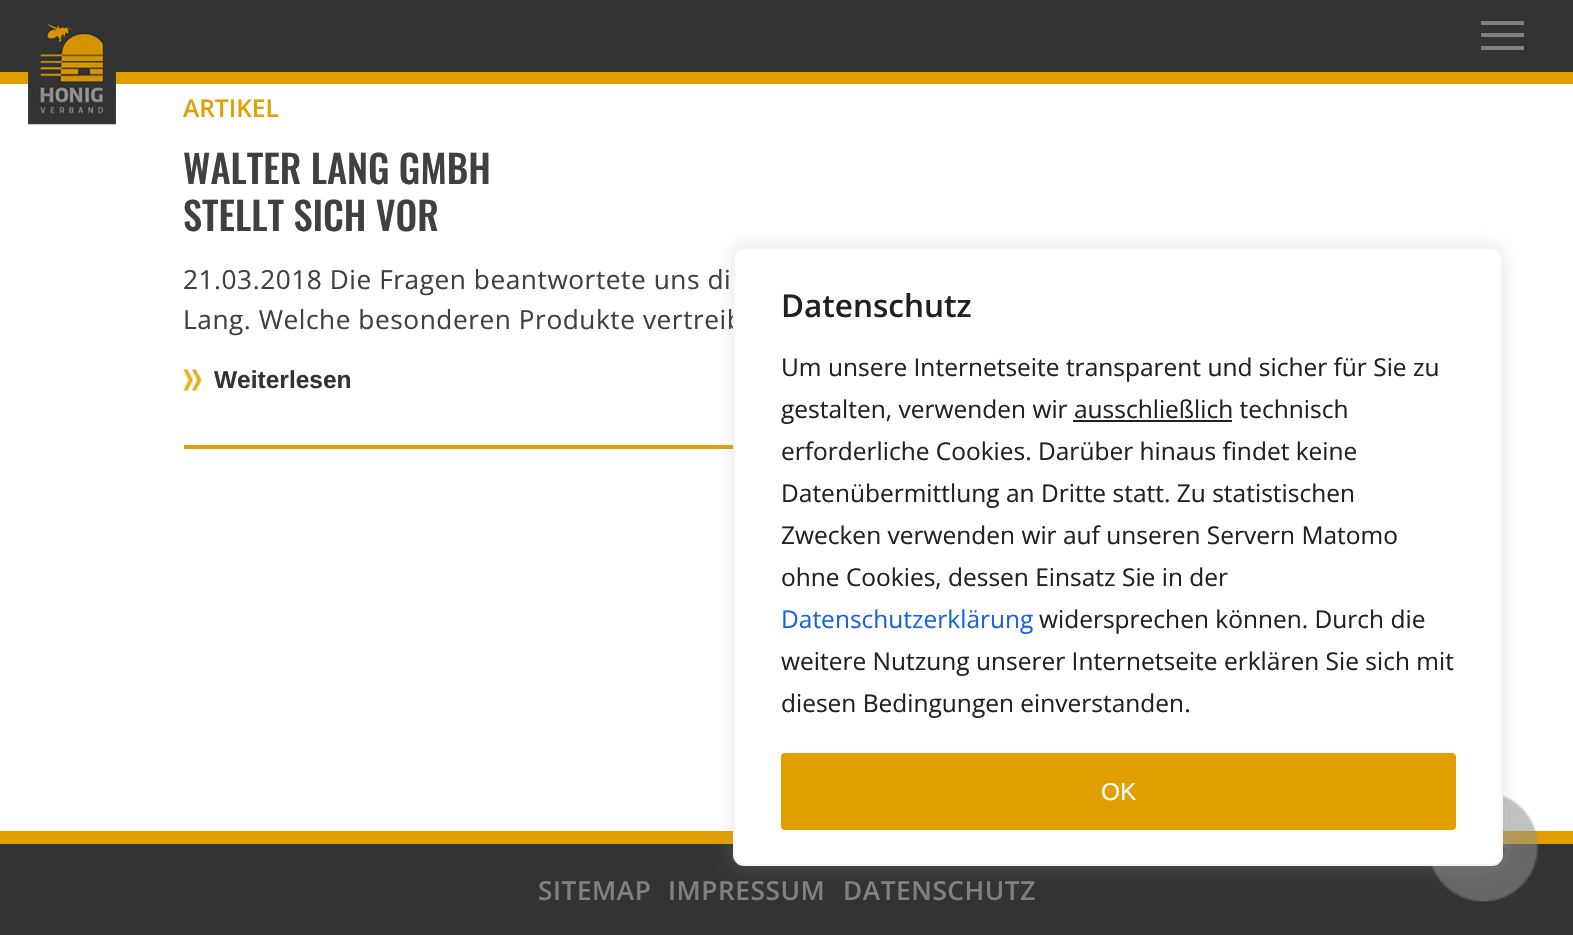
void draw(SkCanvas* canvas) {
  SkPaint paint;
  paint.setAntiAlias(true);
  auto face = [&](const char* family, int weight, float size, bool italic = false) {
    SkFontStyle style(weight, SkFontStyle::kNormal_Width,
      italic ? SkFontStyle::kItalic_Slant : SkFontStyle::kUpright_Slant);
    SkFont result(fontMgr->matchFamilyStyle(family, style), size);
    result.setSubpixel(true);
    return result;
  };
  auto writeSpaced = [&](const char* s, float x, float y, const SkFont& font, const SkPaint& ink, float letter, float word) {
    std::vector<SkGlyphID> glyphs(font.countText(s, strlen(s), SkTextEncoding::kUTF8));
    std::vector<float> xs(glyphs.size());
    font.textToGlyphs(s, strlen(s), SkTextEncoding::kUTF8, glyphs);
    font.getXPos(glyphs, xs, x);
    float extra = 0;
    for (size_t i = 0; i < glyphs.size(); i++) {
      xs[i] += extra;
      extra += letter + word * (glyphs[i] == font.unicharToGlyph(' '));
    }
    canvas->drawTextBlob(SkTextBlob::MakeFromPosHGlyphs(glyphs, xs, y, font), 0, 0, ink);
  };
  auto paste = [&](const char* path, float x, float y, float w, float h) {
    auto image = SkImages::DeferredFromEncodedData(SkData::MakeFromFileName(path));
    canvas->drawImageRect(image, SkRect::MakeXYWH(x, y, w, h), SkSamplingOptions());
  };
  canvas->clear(0xffffffff);
  paint.setColor(0xff333333);
  canvas->drawRect(SkRect::MakeXYWH(0, 0, 1573, 72), paint);
  paint.setColor(0xffe29f00);
  canvas->drawRect(SkRect::MakeXYWH(0, 72, 1573, 12), paint);
  paste("img/1.png", 28, 23, 88, 102);
  {
    const struct { float x, y, w, h; SkColor color; } items[] = {
      {1481, 21, 43, 4, 0xff808080},
      {1481, 33, 43, 4, 0xff808080},
      {1481, 46, 43, 4, 0xff808080},
    };
    for (auto [x, y, w, h, color] : items) {
      paint.setColor(color);
      canvas->drawRect(SkRect::MakeXYWH(x, y, w, h), paint);
    }
  }
  paste("img/2.png", 183, 369, 19, 22);
  {
    const struct { float x, y, w, h; SkColor color; } items[] = {
      {184, 445, 549, 4, 0xffe29f00},
      {0, 844, 1573, 91, 0xff333333},
      {0, 831, 1573, 13, 0xffe29f00},
    };
    for (auto [x, y, w, h, color] : items) {
      paint.setColor(color);
      canvas->drawRect(SkRect::MakeXYWH(x, y, w, h), paint);
    }
  }
  paste("img/3.png", 1431, 794, 108, 108);
  paint.setColor(0x4dacabab);
  paint.setMaskFilter(SkMaskFilter::MakeBlur(kNormal_SkBlurStyle, 9));
  canvas->drawRoundRect(SkRect::MakeXYWH(733, 245, 770, 620), 11, 11, paint);
  paint.setMaskFilter(nullptr);
  auto f0 = face("Open Sans", 600, 24.5f);
  paint.setColor(0xffe29f00);
  canvas->drawString("ARTIKEL", 183, 117, f0, paint);
  auto f1 = face("Oswald", 500, 38.5f);
  paint.setColor(0xff404040);
  canvas->drawString("WALTER LANG GMBH", 183, 184, f1, paint);
  canvas->drawString("STELLT SICH VOR", 183, 231, f1, paint);
  auto f2 = face("Open Sans", 400, 26.25f);
  writeSpaced("21.03.2018 Die Fragen beantwortete uns di", 183, 289, f2, paint, 0.55f, 0);
  writeSpaced("Lang. Welche besonderen Produkte vertreib", 183, 329, f2, paint, 0.55f, 0);
  auto f3 = face("Liberation Sans", 700, 24.5f);
  paint.setColor(0xff333333);
  canvas->drawString("Weiterlesen", 214, 388, f3, paint);
  auto f4 = face("Open Sans", 600, 26.25f);
  paint.setColor(0xff808080);
  {
    const struct { const char* s; float x, y; } items[] = {
      {"SITEMAP", 538, 900},
      {"IMPRESSUM", 668, 900},
      {"DATENSCHUTZ", 843, 900},
    };
    for (auto [s, x, y] : items) {
      writeSpaced(s, x, y, f4, paint, 0.55f, 0);
    }
  }
  paint.setColor(0xffffffff);
  canvas->drawRoundRect(SkRect::MakeXYWH(734, 248, 768, 617), 10, 10, paint);
  paint.setStroke(true);
  paint.setStrokeWidth(2);
  paint.setColor(0xfff4f4f4);
  canvas->drawRoundRect(SkRect::MakeXYWH(734, 248, 768, 617), 10, 10, paint);
  auto f5 = face("Open Sans", 600, 31.5f);
  paint.setStroke(false);
  paint.setColor(0xff212121);
  canvas->drawString("Datenschutz", 781, 317, f5, paint);
  auto f6 = face("Open Sans", 400, 24.5f);
  canvas->drawString("Um unsere Internetseite transparent und sicher für Sie zu", 781, 376, f6, paint);
  canvas->drawString("gestalten, verwenden wir ausschließlich technisch", 781, 418, f6, paint);
  canvas->drawRect(SkRect::MakeXYWH(1073, 420, 159, 2), paint);
  {
    const struct { const char* s; float x, y; } items[] = {
      {"erforderliche Cookies. Darüber hinaus findet keine", 781, 460},
      {"Datenübermittlung an Dritte statt. Zu statistischen", 781, 502},
      {"Zwecken verwenden wir auf unseren Servern Matomo", 781, 544},
      {"ohne Cookies, dessen Einsatz Sie in der", 781, 586},
    };
    for (auto [s, x, y] : items) {
      canvas->drawString(s, x, y, f6, paint);
    }
  }
  paint.setColor(0xff1863dc);
  canvas->drawString("Datenschutzerklärung", 781, 628, f6, paint);
  paint.setColor(0xff212121);
  {
    const struct { const char* s; float x, y; } items[] = {
      {"widersprechen können. Durch die", 1039, 628},
      {"weitere Nutzung unserer Internetseite erklären Sie sich mit", 781, 670},
      {"diesen Bedingungen einverstanden.", 781, 712},
    };
    for (auto [s, x, y] : items) {
      canvas->drawString(s, x, y, f6, paint);
    }
  }
  paint.setColor(0xffe29f00);
  canvas->drawRoundRect(SkRect::MakeXYWH(783, 755, 671, 73), 2, 2, paint);
  paint.setStroke(true);
  paint.setStrokeWidth(4);
  canvas->drawRoundRect(SkRect::MakeXYWH(783, 755, 671, 73), 2, 2, paint);
  auto f7 = face("Liberation Sans", 400, 24.5f);
  paint.setStroke(false);
  paint.setColor(0xffffffff);
  canvas->drawString("OK", 1101, 800, f7, paint);
}
